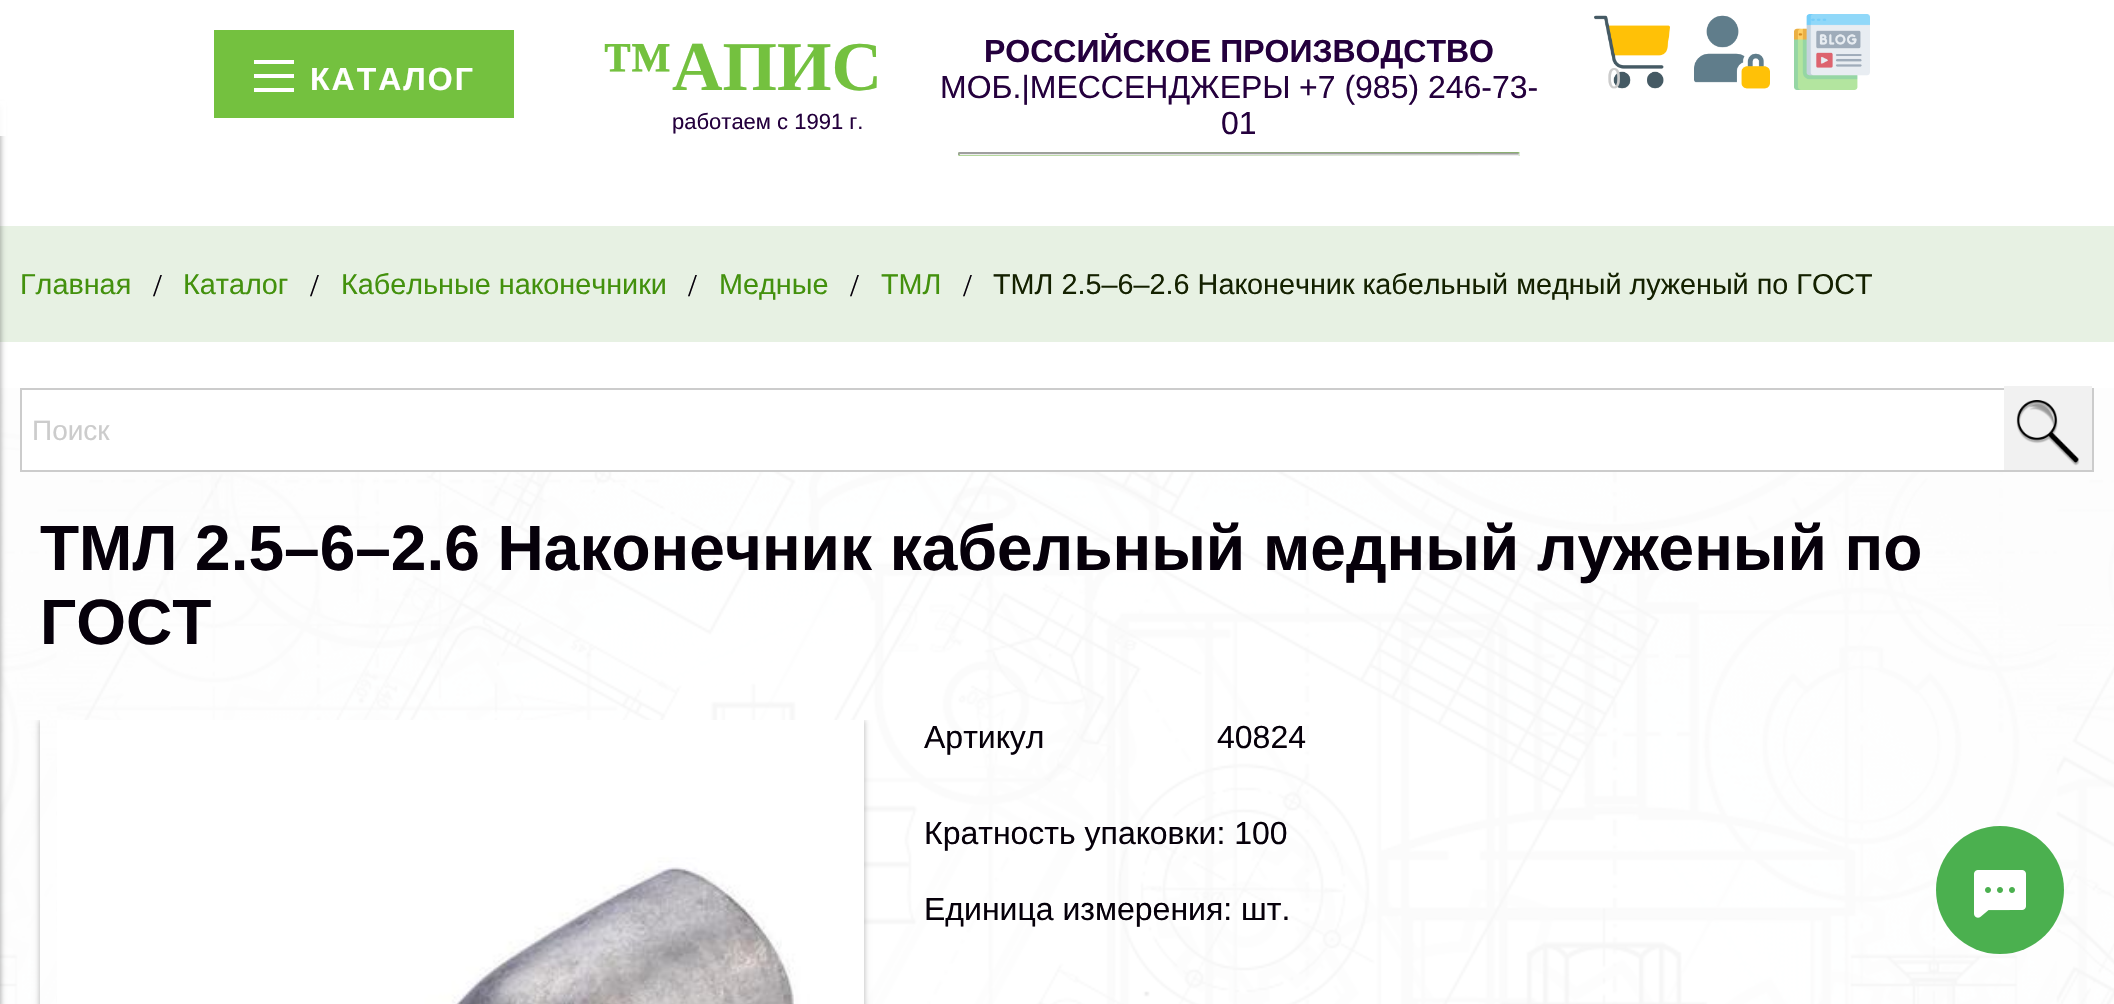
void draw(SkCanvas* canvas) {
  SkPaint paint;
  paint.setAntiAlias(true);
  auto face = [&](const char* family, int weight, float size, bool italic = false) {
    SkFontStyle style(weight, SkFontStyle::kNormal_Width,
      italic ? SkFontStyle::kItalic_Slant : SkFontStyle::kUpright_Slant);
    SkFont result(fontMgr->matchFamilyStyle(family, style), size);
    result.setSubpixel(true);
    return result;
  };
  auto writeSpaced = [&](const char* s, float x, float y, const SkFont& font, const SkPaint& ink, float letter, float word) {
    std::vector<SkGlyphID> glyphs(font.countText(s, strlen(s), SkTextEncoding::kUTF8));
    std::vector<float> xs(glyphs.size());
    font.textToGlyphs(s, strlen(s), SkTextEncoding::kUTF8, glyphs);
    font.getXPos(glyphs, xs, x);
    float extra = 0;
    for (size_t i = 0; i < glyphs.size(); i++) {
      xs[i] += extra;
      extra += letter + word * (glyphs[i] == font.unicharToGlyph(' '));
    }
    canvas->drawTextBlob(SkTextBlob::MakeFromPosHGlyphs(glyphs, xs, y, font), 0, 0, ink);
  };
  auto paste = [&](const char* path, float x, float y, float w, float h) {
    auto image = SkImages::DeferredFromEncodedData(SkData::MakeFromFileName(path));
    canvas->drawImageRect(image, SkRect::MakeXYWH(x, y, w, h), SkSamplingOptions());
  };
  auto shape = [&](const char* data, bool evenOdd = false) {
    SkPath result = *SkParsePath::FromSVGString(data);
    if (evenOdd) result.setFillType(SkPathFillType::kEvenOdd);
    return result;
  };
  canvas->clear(0xffffffff);
  paint.setColor(0xffe7f1e3);
  canvas->drawRect(SkRect::MakeXYWH(0, 226, 2114, 116), paint);
  paste("img/4.png", 0, 388, 2114, 616);
  paint.setColor(0x66000000);
  paint.setMaskFilter(SkMaskFilter::MakeBlur(kNormal_SkBlurStyle, 3));
  canvas->drawRect(SkRect::MakeXYWH(-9, 106, 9, 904), paint);
  paint.setMaskFilter(nullptr);
  {
    const struct { float x, y, w, h; SkColor color; } items[] = {
      {0, 101, 6, 35, 0xe6ffffff},
      {214, 30, 300, 88, 0xff74c13f},
      {254, 60, 40, 4, 0xffffffff},
      {254, 74, 40, 4, 0xffffffff},
      {254, 88, 40, 4, 0xffffffff},
    };
    for (auto [x, y, w, h, color] : items) {
      paint.setColor(color);
      canvas->drawRect(SkRect::MakeXYWH(x, y, w, h), paint);
    }
  }
  paint.setColor(0xff74c13f);
  canvas->drawRoundRect(SkRect::MakeXYWH(958, 152, 562, 4), 2, 2, paint);
  paint.setStroke(true);
  paint.setStrokeWidth(2);
  paint.setColor(0xffeeeeee);
  canvas->drawPath(shape("M1518.5 153.5C1519.5 154 1519 155 1518 155L959.5 154.5"), paint);
  paint.setColor(0xff9f9f9f);
  canvas->drawPath(shape("M959.5 154.5C958.5 154 959 153 960 153L1518.5 153.5"), paint);
  paste("img/1.png", 1594, 15, 76, 74);
  paste("img/2.png", 1694, 15, 76, 74);
  paste("img/3.png", 1794, 14, 76, 76);
  paint.setColor(0xffcccccc);
  canvas->drawRect(SkRect::MakeXYWH(21, 389, 2072, 82), paint);
  paint.setStroke(false);
  paint.setColor(0xffffffff);
  canvas->drawRect(SkRect::MakeXYWH(22, 390, 1982, 80), paint);
  paint.setColor(0xfff1f1f1);
  canvas->drawRect(SkRect::MakeXYWH(2004, 386, 88, 84), paint);
  paste("img/5.png", 2016, 400, 64, 66);
  canvas->save();
  canvas->clipRect(SkRect::MakeXYWH(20, 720, 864, 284));
  canvas->clipPath(shape("M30 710H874V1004H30ZM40 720H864V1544H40Z", true), true);
  paint.setColor(0x4d000000);
  paint.setMaskFilter(SkMaskFilter::MakeBlur(kNormal_SkBlurStyle, 3));
  canvas->drawRect(SkRect::MakeXYWH(40, 720, 824, 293), paint);
  paint.setMaskFilter(nullptr);
  canvas->restore();
  paste("img/6.png", 57, 720, 807, 284);
  paint.setColor(0xff4bb04f);
  canvas->drawCircle(2000, 890, 64, paint);
  paste("img/7.png", 1974, 870, 52, 48);
  auto f0 = face("Liberation Sans", 700, 32);
  paint.setColor(0xffffffff);
  writeSpaced("КАТАЛОГ", 310, 90, f0, paint, 2, 0);
  auto f1 = face("Liberation Serif", 700, 70);
  paint.setColor(0xff74c13f);
  canvas->drawString("™АПИС", 602, 90, f1, paint);
  auto f2 = face("Liberation Sans", 400, 22);
  paint.setColor(0xff24003d);
  canvas->drawString("работаем с 1991 г.", 672, 129, f2, paint);
  canvas->drawString("РОССИЙСКОЕ ПРОИЗВОДСТВО", 984, 62, f0, paint);
  auto f3 = face("Liberation Sans", 400, 32);
  {
    const struct { const char* s; float x, y; } items[] = {
      {"МОБ.|МЕССЕНДЖЕРЫ", 940, 98},
      {"+7 (985) 246-73-", 1299, 98},
      {"01", 1221, 134},
    };
    for (auto [s, x, y] : items) {
      canvas->drawString(s, x, y, f3, paint);
    }
  }
  auto f4 = face("Cuprum", 400, 28);
  paint.setColor(0xffcccccc);
  canvas->drawString("0", 1607, 88, f4, paint);
  auto f5 = face("Liberation Sans", 400, 28.8f);
  paint.setColor(0xff43910d);
  canvas->drawString("Главная", 20, 294, f5, paint);
  auto f6 = face("Liberation Serif", 400, 32);
  paint.setColor(0xff06000a);
  canvas->drawString("/", 153, 296, f6, paint);
  paint.setColor(0xff43910d);
  canvas->drawString("Каталог", 183, 294, f5, paint);
  paint.setColor(0xff06000a);
  canvas->drawString("/", 310, 296, f6, paint);
  paint.setColor(0xff43910d);
  canvas->drawString("Кабельные наконечники", 341, 294, f5, paint);
  paint.setColor(0xff06000a);
  canvas->drawString("/", 688, 296, f6, paint);
  paint.setColor(0xff43910d);
  canvas->drawString("Медные", 719, 294, f5, paint);
  paint.setColor(0xff06000a);
  canvas->drawString("/", 850, 296, f6, paint);
  paint.setColor(0xff43910d);
  canvas->drawString("ТМЛ", 881, 294, f5, paint);
  paint.setColor(0xff06000a);
  canvas->drawString("/", 963, 296, f6, paint);
  paint.setColor(0xff142100);
  canvas->drawString("ТМЛ 2.5–6–2.6 Наконечник кабельный медный луженый по ГОСТ", 993, 294, f5, paint);
  auto f7 = face("Liberation Sans", 400, 28);
  paint.setColor(0xffcccccc);
  canvas->drawString("Поиск", 32, 440, f7, paint);
  auto f8 = face("Liberation Sans", 700, 64);
  paint.setColor(0xff06000a);
  canvas->drawString("ТМЛ 2.5–6–2.6 Наконечник кабельный медный луженый по", 40, 570, f8, paint);
  canvas->drawString("ГОСТ", 40, 644, f8, paint);
  {
    const struct { const char* s; float x, y; } items[] = {
      {"Артикул", 924, 748},
      {"40824", 1217, 748},
      {"Кратность упаковки: 100", 924, 844},
      {"Единица измерения: шт.", 924, 920},
    };
    for (auto [s, x, y] : items) {
      canvas->drawString(s, x, y, f3, paint);
    }
  }
}
